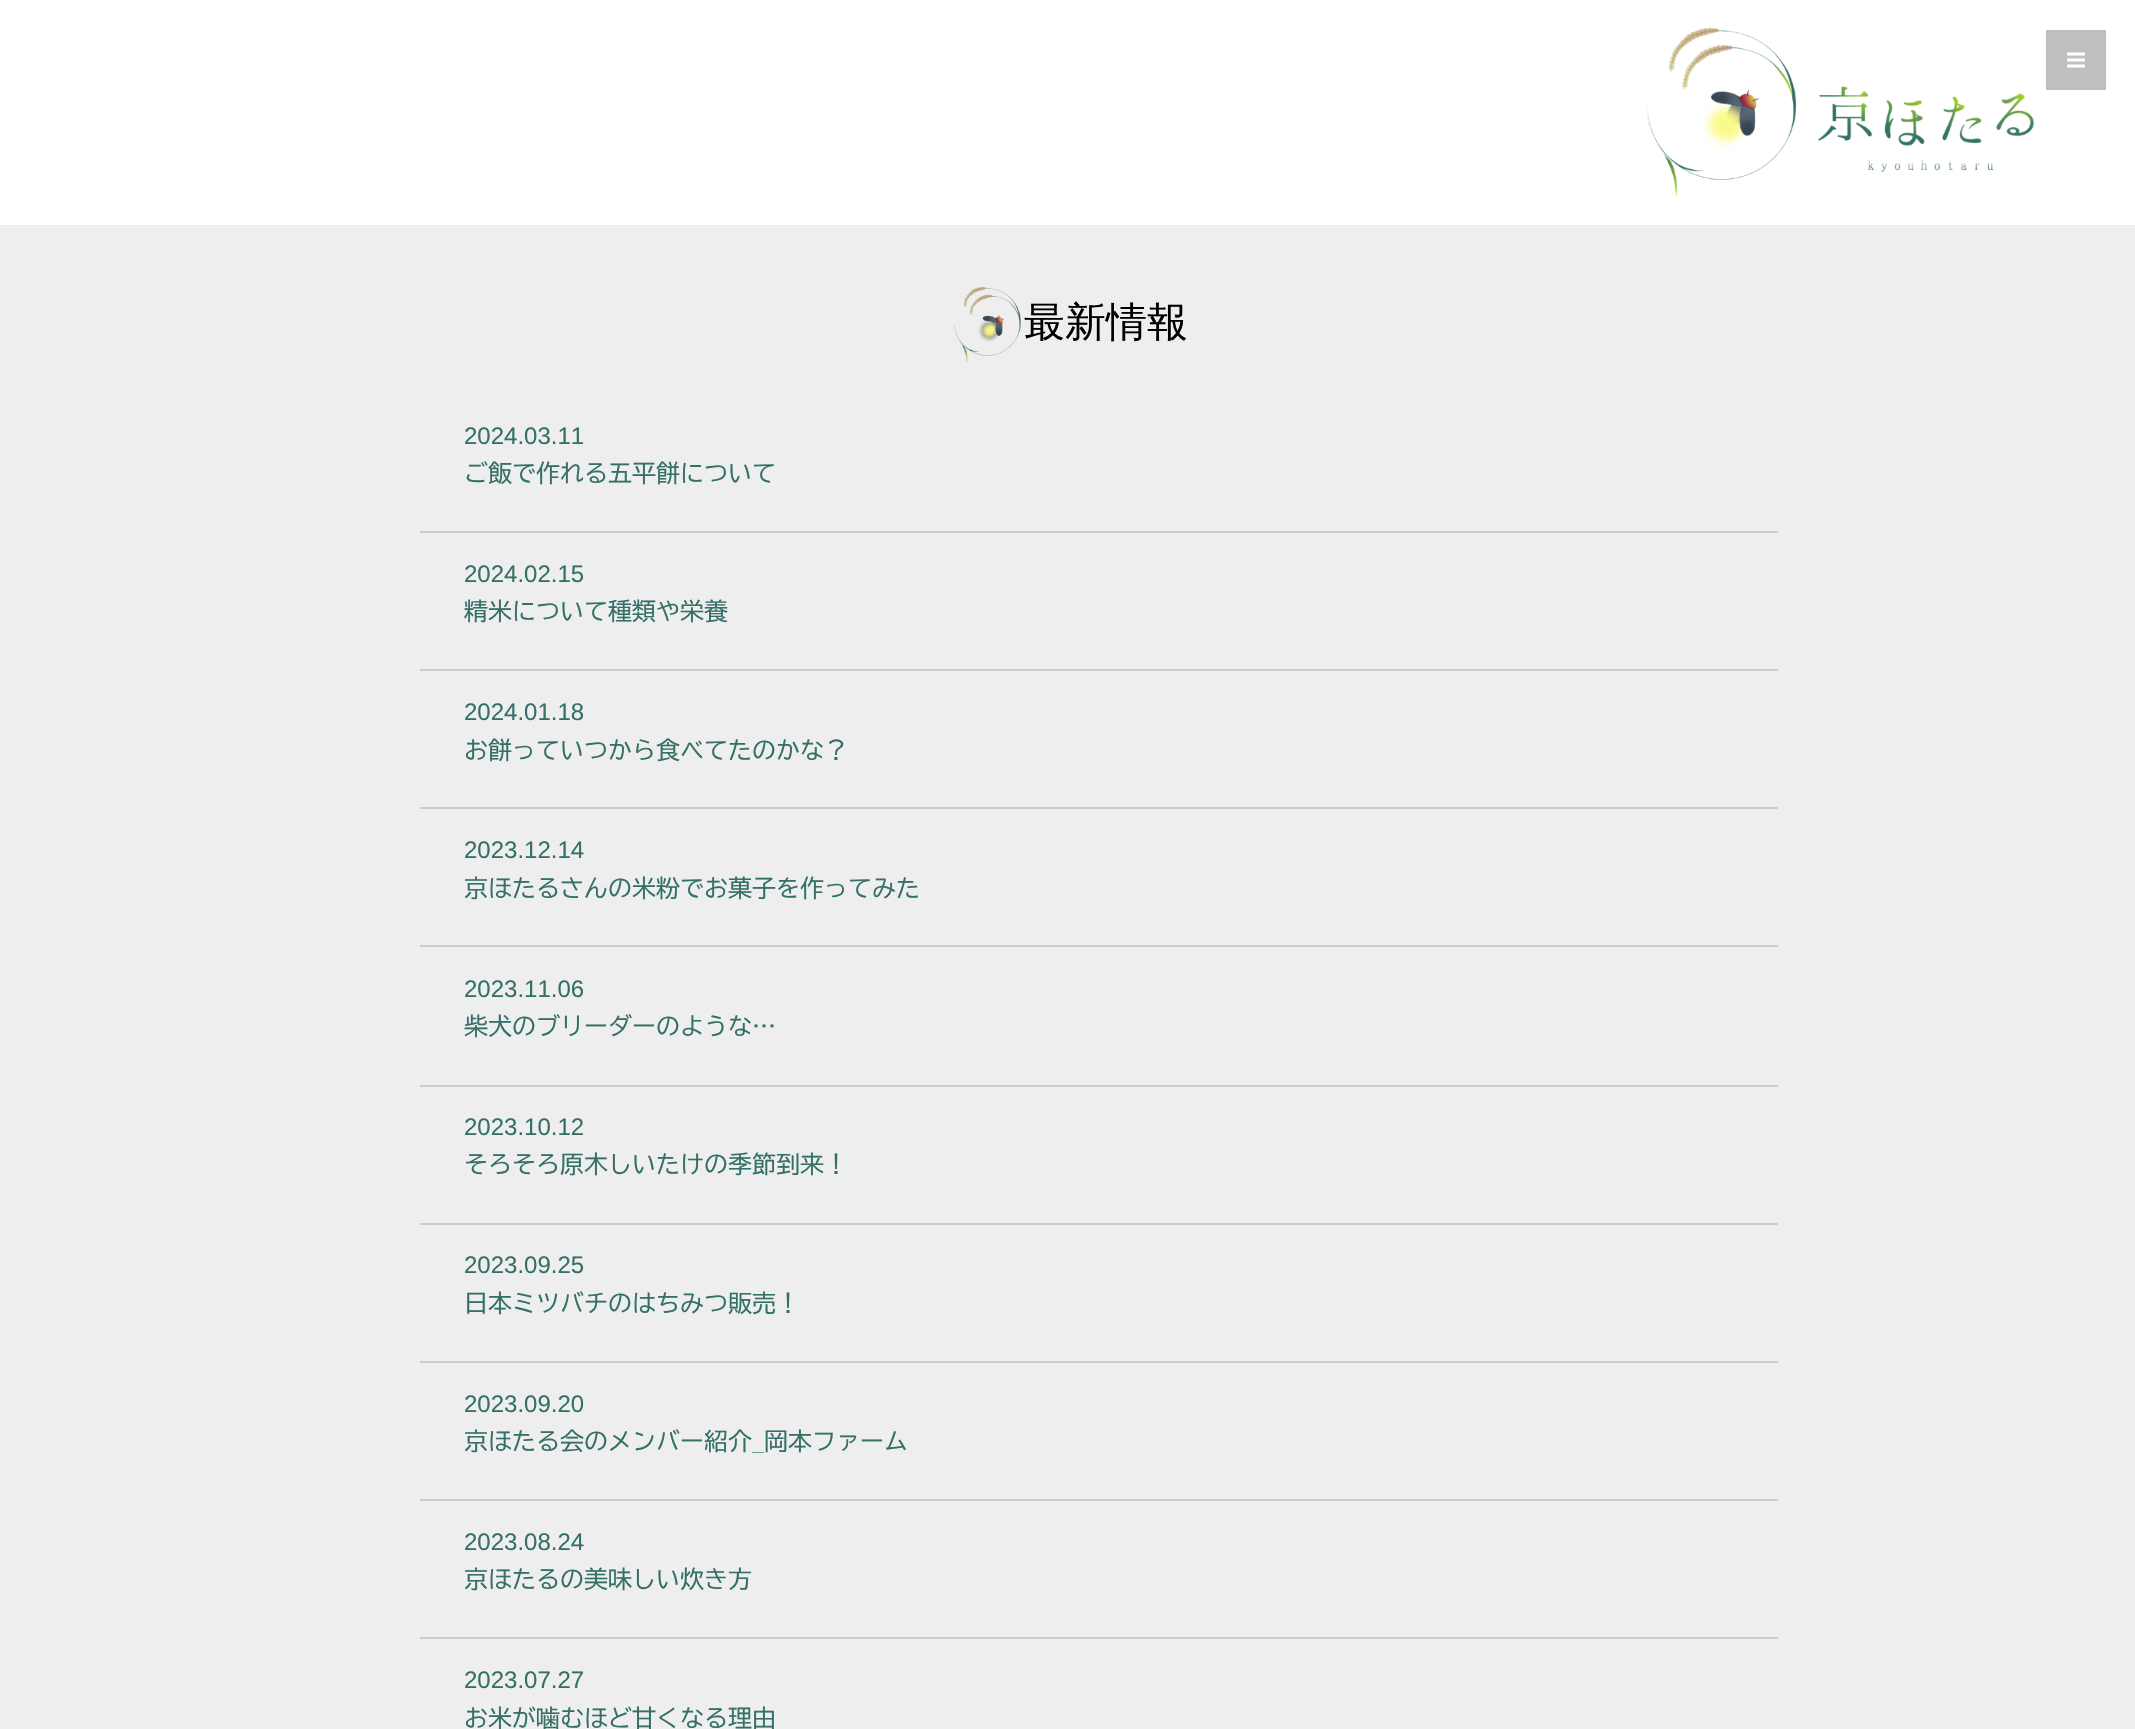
void draw(SkCanvas* canvas) {
  SkPaint paint;
  paint.setAntiAlias(true);
  auto face = [&](const char* family, int weight, float size, bool italic = false) {
    SkFontStyle style(weight, SkFontStyle::kNormal_Width,
      italic ? SkFontStyle::kItalic_Slant : SkFontStyle::kUpright_Slant);
    SkFont result(fontMgr->matchFamilyStyle(family, style), size);
    result.setSubpixel(true);
    return result;
  };
  auto paste = [&](const char* path, float x, float y, float w, float h) {
    auto image = SkImages::DeferredFromEncodedData(SkData::MakeFromFileName(path));
    canvas->drawImageRect(image, SkRect::MakeXYWH(x, y, w, h), SkSamplingOptions());
  };
  canvas->clear(0xffffffff);
  paste("img/1.png", 1647, 27, 388, 170);
  paint.setColor(0xffbfbfbf);
  canvas->drawRect(SkRect::MakeXYWH(2046, 30, 60, 60), paint);
  paste("img/2.png", 2067, 52, 18, 16);
  paint.setColor(0xffeeeeee);
  canvas->drawRect(SkRect::MakeXYWH(0, 225, 2135, 1504), paint);
  paste("img/3.png", 954, 287, 67, 76);
  {
    const struct { float x, y, w, h; SkColor color; } items[] = {
      {420, 531, 1358, 2, 0xffcccccc},
      {420, 669, 1358, 2, 0xffcccccc},
      {420, 807, 1358, 2, 0xffcccccc},
      {420, 945, 1358, 2, 0xffcccccc},
      {420, 1085, 1358, 2, 0xffcccccc},
      {420, 1223, 1358, 2, 0xffcccccc},
      {420, 1361, 1358, 2, 0xffcccccc},
      {420, 1499, 1358, 2, 0xffcccccc},
      {420, 1637, 1358, 2, 0xffcccccc},
    };
    for (auto [x, y, w, h, color] : items) {
      paint.setColor(color);
      canvas->drawRect(SkRect::MakeXYWH(x, y, w, h), paint);
    }
  }
  auto f0 = face("WenQuanYi Zen Hei", 500, 41);
  paint.setColor(0xff000000);
  canvas->drawString("最新情報", 1024, 336, f0, paint);
  auto f1 = face("Liberation Sans", 400, 24);
  paint.setColor(0xff347068);
  canvas->drawString("2024.03.11", 464, 444, f1, paint);
  auto f2 = face("BIZ UDGothic", 400, 24);
  canvas->drawString("ご飯で作れる五平餅について", 464, 482, f2, paint);
  canvas->drawString("2024.02.15", 464, 582, f1, paint);
  canvas->drawString("精米について種類や栄養", 464, 620, f2, paint);
  canvas->drawString("2024.01.18", 464, 720, f1, paint);
  canvas->drawString("お餅っていつから食べてたのかな？", 464, 759, f2, paint);
  canvas->drawString("2023.12.14", 464, 858, f1, paint);
  canvas->drawString("京ほたるさんの米粉でお菓子を作ってみた", 464, 897, f2, paint);
  canvas->drawString("2023.11.06", 464, 997, f1, paint);
  canvas->drawString("柴犬のブリーダーのような…", 464, 1035, f2, paint);
  canvas->drawString("2023.10.12", 464, 1135, f1, paint);
  canvas->drawString("そろそろ原木しいたけの季節到来！", 464, 1173, f2, paint);
  canvas->drawString("2023.09.25", 464, 1273, f1, paint);
  canvas->drawString("日本ミツバチのはちみつ販売！", 464, 1312, f2, paint);
  canvas->drawString("2023.09.20", 464, 1412, f1, paint);
  canvas->drawString("京ほたる会のメンバー紹介_岡本ファーム", 464, 1450, f2, paint);
  canvas->drawString("2023.08.24", 464, 1550, f1, paint);
  canvas->drawString("京ほたるの美味しい炊き方", 464, 1588, f2, paint);
  canvas->drawString("2023.07.27", 464, 1688, f1, paint);
  canvas->drawString("お米が噛むほど甘くなる理由", 464, 1727, f2, paint);
}
